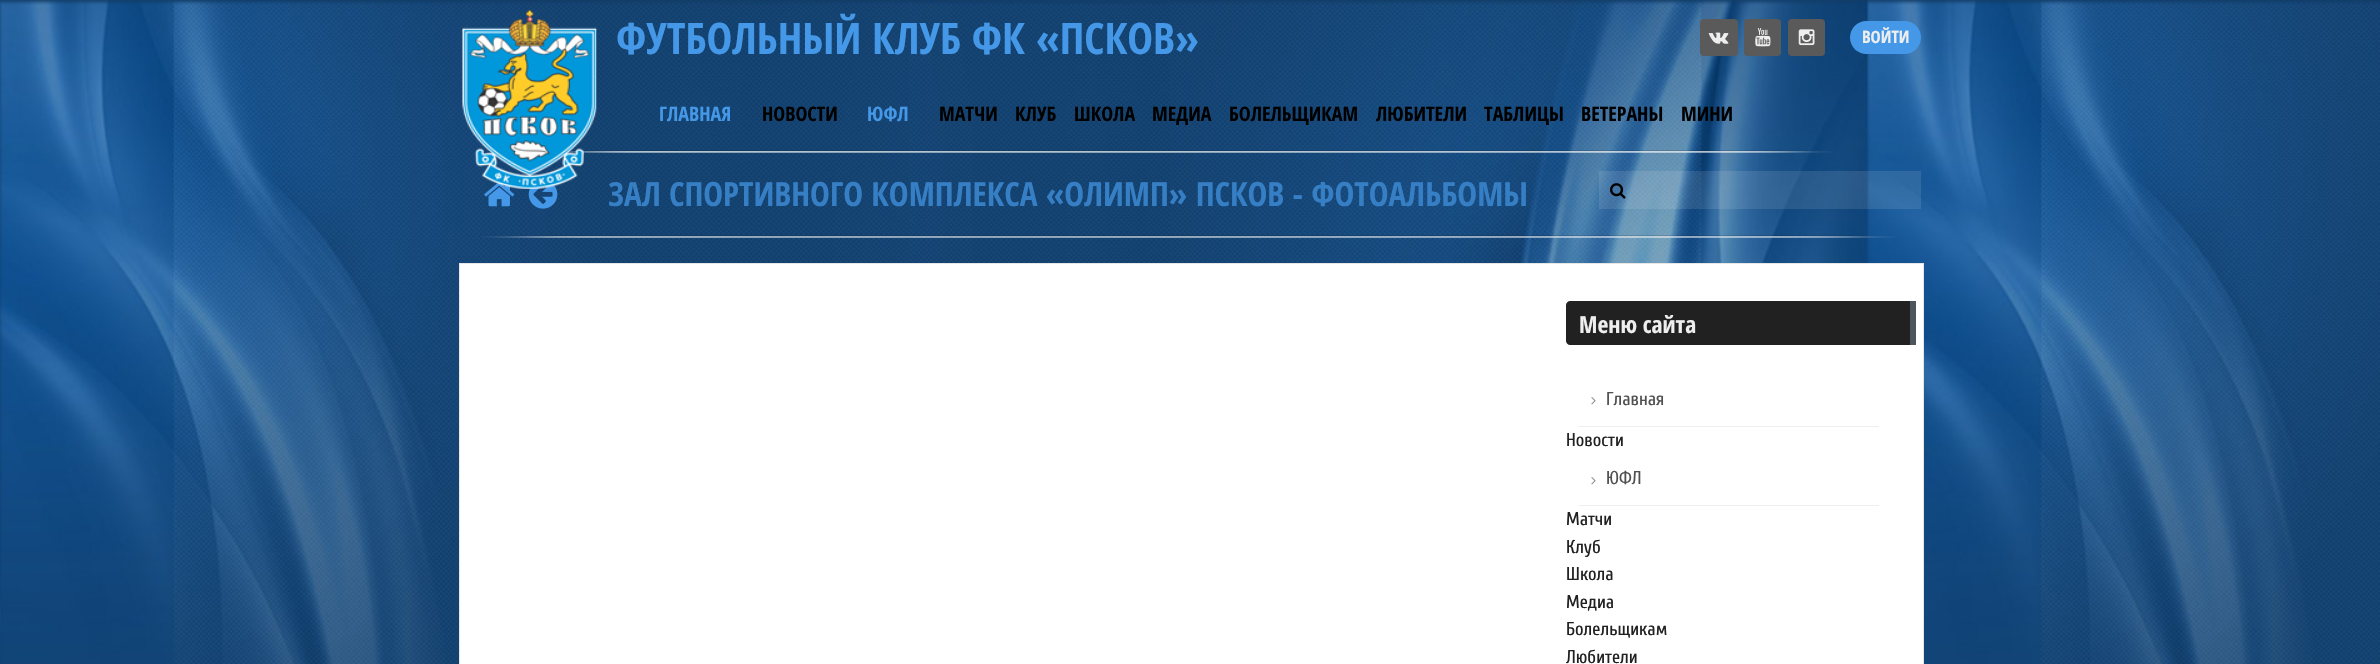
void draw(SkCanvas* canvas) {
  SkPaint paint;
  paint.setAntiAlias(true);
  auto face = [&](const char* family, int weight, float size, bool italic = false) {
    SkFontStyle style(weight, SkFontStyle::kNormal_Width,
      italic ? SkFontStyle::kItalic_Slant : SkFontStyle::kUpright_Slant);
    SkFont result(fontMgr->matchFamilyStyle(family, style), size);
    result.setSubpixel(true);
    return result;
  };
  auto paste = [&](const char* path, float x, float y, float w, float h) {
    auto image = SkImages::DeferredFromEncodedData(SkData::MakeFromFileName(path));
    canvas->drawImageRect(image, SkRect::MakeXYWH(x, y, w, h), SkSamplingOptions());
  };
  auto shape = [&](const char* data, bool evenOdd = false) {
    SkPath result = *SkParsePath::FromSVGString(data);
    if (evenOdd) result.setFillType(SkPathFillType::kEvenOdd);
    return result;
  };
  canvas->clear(0xffffffff);
  paste("img/1.png", 0, 0, 2380, 664);
  paste("img/6.png", 566, 150, 1266, 3);
  paste("img/7.png", 484, 182, 31, 25);
  paste("img/8.png", 528, 185, 30, 24);
  paste("img/2.png", 462, 10, 135, 179);
  paint.setColor(0xff5a5a5a);
  canvas->drawRoundRect(SkRect::MakeXYWH(1700, 19, 38, 37), 4, 4, paint);
  paste("img/3.png", 1708, 32, 21, 12);
  canvas->drawRoundRect(SkRect::MakeXYWH(1744, 19, 37, 37), 4, 4, paint);
  paste("img/4.png", 1755, 28, 16, 19);
  canvas->drawRoundRect(SkRect::MakeXYWH(1788, 19, 37, 37), 4, 4, paint);
  paste("img/5.png", 1798, 29, 17, 17);
  paint.setColor(0xff4498e7);
  canvas->drawRoundRect(SkRect::MakeXYWH(1850, 21, 71, 33), 16.5f, 16.5f, paint);
  paint.setColor(0x1affffff);
  canvas->drawRect(SkRect::MakeXYWH(1599, 171, 322, 38), paint);
  paste("img/9.png", 1610, 183, 16, 16);
  paste("img/10.png", 482, 235, 1413, 3);
  paint.setColor(0xffffffff);
  canvas->drawRect(SkRect::MakeXYWH(459.5f, 263.5f, 1464, 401), paint);
  paint.setStroke(true);
  paint.setStrokeWidth(1);
  paint.setColor(0xffe6e6e6);
  canvas->drawRect(SkRect::MakeXYWH(459.5f, 263.5f, 1464, 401), paint);
  paint.setStroke(false);
  paint.setColor(0xff212121);
  canvas->drawPath(shape("M1570 301H1916V345H1570C1568 345 1566 343 1566 341V305C1566 303 1568 301 1570 301Z"), paint);
  paint.setColor(0xff4c565c);
  canvas->drawRect(SkRect::MakeXYWH(1910, 301, 6, 44), paint);
  paint.setColor(0xffeeeeee);
  canvas->drawRect(SkRect::MakeXYWH(1579, 426, 300, 1), paint);
  paste("img/11.png", 1591, 397, 5, 8);
  canvas->drawRect(SkRect::MakeXYWH(1579, 505, 300, 1), paint);
  paste("img/11.png", 1591, 477, 5, 8);
  auto f0 = face("Open Sans Condensed", 700, 43.3f);
  paint.setColor(0xff4498e7);
  canvas->drawString("ФУТБОЛЬНЫЙ КЛУБ ФК «ПСКОВ»", 616, 54, f0, paint);
  auto f1 = face("Open Sans Condensed", 700, 17);
  paint.setColor(0xffeeeeee);
  canvas->drawString("ВОЙТИ", 1862, 43, f1, paint);
  auto f2 = face("Open Sans Condensed", 700, 20);
  paint.setColor(0xff4498e7);
  canvas->drawString("ГЛАВНАЯ", 659, 121, f2, paint);
  paint.setColor(0xff000000);
  canvas->drawString("НОВОСТИ", 762, 121, f2, paint);
  paint.setColor(0xff4498e7);
  canvas->drawString("ЮФЛ", 867, 121, f2, paint);
  paint.setColor(0xff000000);
  {
    const struct { const char* s; float x, y; } items[] = {
      {"МАТЧИ", 939, 121},
      {"КЛУБ", 1015, 121},
      {"ШКОЛА", 1074, 121},
      {"МЕДИА", 1152, 121},
      {"БОЛЕЛЬЩИКАМ", 1229, 121},
      {"ЛЮБИТЕЛИ", 1376, 121},
      {"ТАБЛИЦЫ", 1484, 121},
      {"ВЕТЕРАНЫ", 1581, 121},
      {"МИНИ", 1681, 121},
    };
    for (auto [s, x, y] : items) {
      canvas->drawString(s, x, y, f2, paint);
    }
  }
  auto f3 = face("Open Sans Condensed", 700, 33.3f);
  paint.setColor(0xff367fc5);
  canvas->drawString("ЗАЛ СПОРТИВНОГО КОМПЛЕКСА «ОЛИМП» ПСКОВ - ФОТОАЛЬБОМЫ", 608, 206, f3, paint);
  auto f4 = face("Open Sans Condensed", 700, 23.5f);
  paint.setColor(0xffeeeeee);
  canvas->drawString("Меню сайта", 1579, 333, f4, paint);
  auto f5 = face("Cuprum", 400, 18.5f);
  paint.setColor(0xff505050);
  canvas->drawString("Главная", 1606, 405, f5, paint);
  paint.setColor(0xff212121);
  canvas->drawString("Новости", 1566, 446, f5, paint);
  paint.setColor(0xff505050);
  canvas->drawString("ЮФЛ", 1606, 484, f5, paint);
  paint.setColor(0xff212121);
  {
    const struct { const char* s; float x, y; } items[] = {
      {"Матчи", 1566, 525},
      {"Клуб", 1566, 553},
      {"Школа", 1566, 580},
      {"Медиа", 1566, 608},
      {"Болельщикам", 1566, 635},
      {"Любители", 1566, 663},
    };
    for (auto [s, x, y] : items) {
      canvas->drawString(s, x, y, f5, paint);
    }
  }
}
